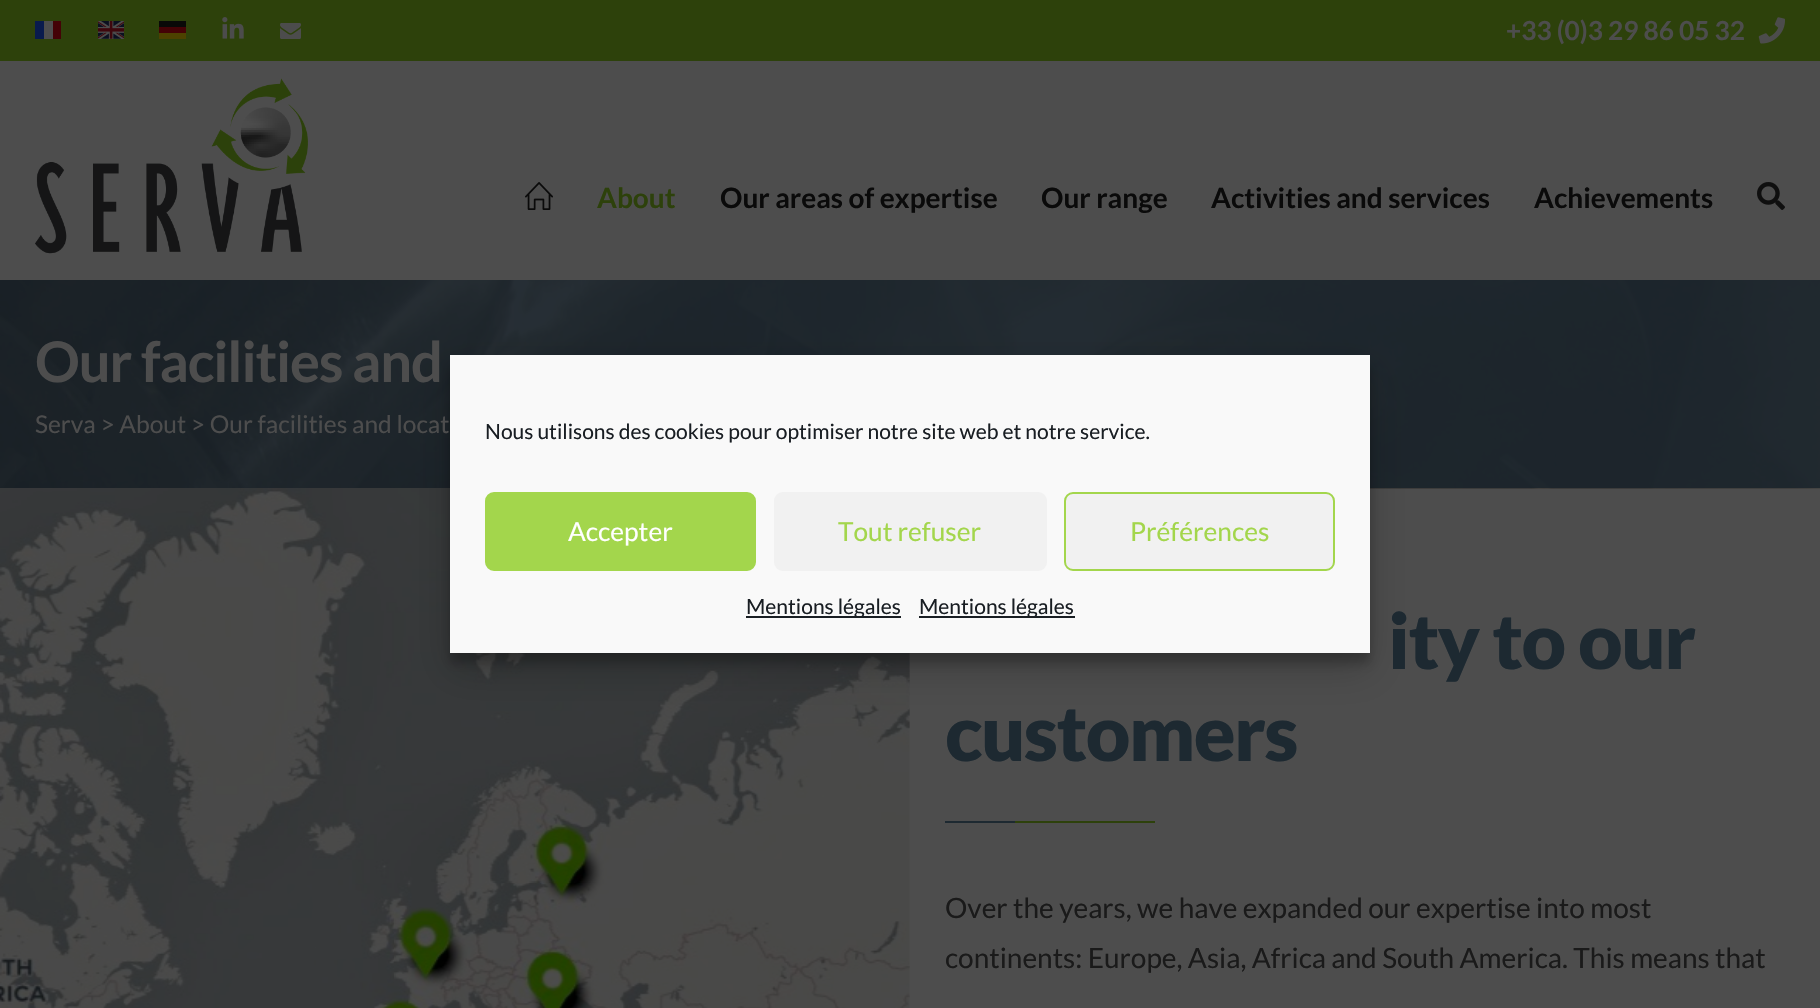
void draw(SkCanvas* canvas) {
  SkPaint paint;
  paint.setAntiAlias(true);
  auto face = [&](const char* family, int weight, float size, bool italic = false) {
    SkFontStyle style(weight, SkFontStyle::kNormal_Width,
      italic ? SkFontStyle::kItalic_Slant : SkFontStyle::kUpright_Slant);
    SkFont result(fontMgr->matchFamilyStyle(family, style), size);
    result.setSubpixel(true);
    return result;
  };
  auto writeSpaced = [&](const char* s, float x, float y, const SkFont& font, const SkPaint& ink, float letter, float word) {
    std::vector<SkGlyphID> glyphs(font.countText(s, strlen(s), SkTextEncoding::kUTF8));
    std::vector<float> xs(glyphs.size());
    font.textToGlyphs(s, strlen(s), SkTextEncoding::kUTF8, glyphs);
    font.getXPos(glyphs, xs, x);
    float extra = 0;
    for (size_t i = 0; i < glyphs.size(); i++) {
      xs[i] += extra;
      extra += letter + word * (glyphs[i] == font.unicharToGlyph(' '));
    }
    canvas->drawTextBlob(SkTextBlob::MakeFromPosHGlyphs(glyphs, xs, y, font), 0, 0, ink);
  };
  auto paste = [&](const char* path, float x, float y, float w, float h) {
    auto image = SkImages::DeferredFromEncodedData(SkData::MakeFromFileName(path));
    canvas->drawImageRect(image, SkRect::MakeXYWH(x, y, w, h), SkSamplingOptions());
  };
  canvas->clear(0xff4d4d4d);
  {
    const struct { float x, y, w, h; SkColor color; } items[] = {
      {0, 0, 1820, 61, 0xff2d410b},
      {44, 21, 9, 18, 0xff4d4d4d},
      {53, 21, 8, 18, 0xff440206},
      {35, 21, 9, 18, 0xff091b4d},
    };
    for (auto [x, y, w, h, color] : items) {
      paint.setColor(color);
      canvas->drawRect(SkRect::MakeXYWH(x, y, w, h), paint);
    }
  }
  paste("img/1.png", 98, 21, 26, 18);
  {
    const struct { float x, y, w, h; SkColor color; } items[] = {
      {159, 27, 27, 6, 0xff440206},
      {159, 33, 27, 6, 0xff4d4200},
      {159, 21, 27, 6, 0xff090908},
    };
    for (auto [x, y, w, h, color] : items) {
      paint.setColor(color);
      canvas->drawRect(SkRect::MakeXYWH(x, y, w, h), paint);
    }
  }
  paste("img/2.png", 222, 17, 22, 22);
  paste("img/3.png", 280, 23, 21, 16);
  paste("img/4.png", 1758, 17, 27, 27);
  paste("img/5.png", 35, 78, 273, 176);
  paste("img/6.png", 525, 182, 28, 28);
  paste("img/7.png", 1757, 182, 28, 28);
  paste("img/8.png", 0, 280, 1820, 209);
  paste("img/9.png", 0, 488, 910, 520);
  paint.setColor(0xff1d2931);
  canvas->drawRect(SkRect::MakeXYWH(945, 821, 70, 2), paint);
  paint.setColor(0xff2d410b);
  canvas->drawRect(SkRect::MakeXYWH(1015, 821, 140, 2), paint);
  paint.setColor(0x3b000000);
  paint.setMaskFilter(SkMaskFilter::MakeBlur(kNormal_SkBlurStyle, 5));
  canvas->drawRect(SkRect::MakeXYWH(450, 366, 920, 297), paint);
  paint.setMaskFilter(nullptr);
  paint.setColor(0x30000000);
  paint.setMaskFilter(SkMaskFilter::MakeBlur(kNormal_SkBlurStyle, 17.5f));
  canvas->drawRect(SkRect::MakeXYWH(450, 373, 920, 297), paint);
  paint.setMaskFilter(nullptr);
  paint.setColor(0xfff9f9f9);
  canvas->drawRect(SkRect::MakeXYWH(450, 355, 920, 298), paint);
  paint.setColor(0xffa3d64c);
  canvas->drawRoundRect(SkRect::MakeXYWH(486, 493, 269, 77), 8, 8, paint);
  paint.setStroke(true);
  paint.setStrokeWidth(2);
  canvas->drawRoundRect(SkRect::MakeXYWH(486, 493, 269, 77), 8, 8, paint);
  paint.setStroke(false);
  paint.setColor(0xfff1f1f1);
  canvas->drawRoundRect(SkRect::MakeXYWH(774, 492, 273, 79), 9, 9, paint);
  canvas->drawRoundRect(SkRect::MakeXYWH(1065, 493, 269, 77), 8, 8, paint);
  paint.setStroke(true);
  paint.setColor(0xffa3d64c);
  canvas->drawRoundRect(SkRect::MakeXYWH(1065, 493, 269, 77), 8, 8, paint);
  paint.setStroke(false);
  paint.setColor(0xff191e23);
  canvas->drawRect(SkRect::MakeXYWH(746, 616, 155, 2), paint);
  canvas->drawRect(SkRect::MakeXYWH(919, 616, 156, 2), paint);
  auto f0 = face("Lato", 700, 26.25f);
  paint.setColor(0xff4d4d4d);
  canvas->drawString("+33 (0)3 29 86 05 32", 1506, 40, f0, paint);
  auto f1 = face("Lato", 700, 28);
  paint.setColor(0xff2d410b);
  canvas->drawString("About", 597, 208, f1, paint);
  paint.setColor(0xff0a0a0a);
  {
    const struct { const char* s; float x, y; } items[] = {
      {"Our areas of expertise", 720, 208},
      {"Our range", 1041, 208},
      {"Activities and services", 1211, 208},
      {"Achievements", 1534, 208},
    };
    for (auto [s, x, y] : items) {
      canvas->drawString(s, x, y, f1, paint);
    }
  }
  auto f2 = face("Lato", 700, 56);
  paint.setColor(0xff4d4d4d);
  writeSpaced("Our facilities and", 35, 382, f2, paint, -1.1f, 0);
  auto f3 = face("Lato", 400, 24.5f);
  canvas->drawString("Serva > About > Our facilities and locat", 35, 433, f3, paint);
  auto f4 = face("Lato", 900, 77);
  paint.setColor(0xff1d2931);
  writeSpaced("ity to our", 1388, 669, f4, paint, -1.5f, 0);
  writeSpaced("customers", 945, 761, f4, paint, -1.5f, 0);
  auto f5 = face("Lato", 400, 28);
  paint.setColor(0xff1a1a1a);
  canvas->drawString("Over the years, we have expanded our expertise into most", 945, 918, f5, paint);
  canvas->drawString("continents: Europe, Asia, Africa and South America. This means that", 945, 968, f5, paint);
  auto f6 = face("Lato", 400, 21);
  paint.setColor(0xff191e23);
  canvas->drawString("Nous utilisons des cookies pour optimiser notre site web et notre service.", 485, 439, f6, paint);
  auto f7 = face("Lato", 400, 26.25f);
  paint.setColor(0xffffffff);
  canvas->drawString("Accepter", 568, 541, f7, paint);
  paint.setColor(0xffa3d64c);
  canvas->drawString("Tout refuser", 838, 541, f7, paint);
  canvas->drawString("Préférences", 1130, 541, f7, paint);
  paint.setColor(0xff191e23);
  canvas->drawString("Mentions légales", 746, 614, f6, paint);
  canvas->drawString("Mentions légales", 919, 614, f6, paint);
}
